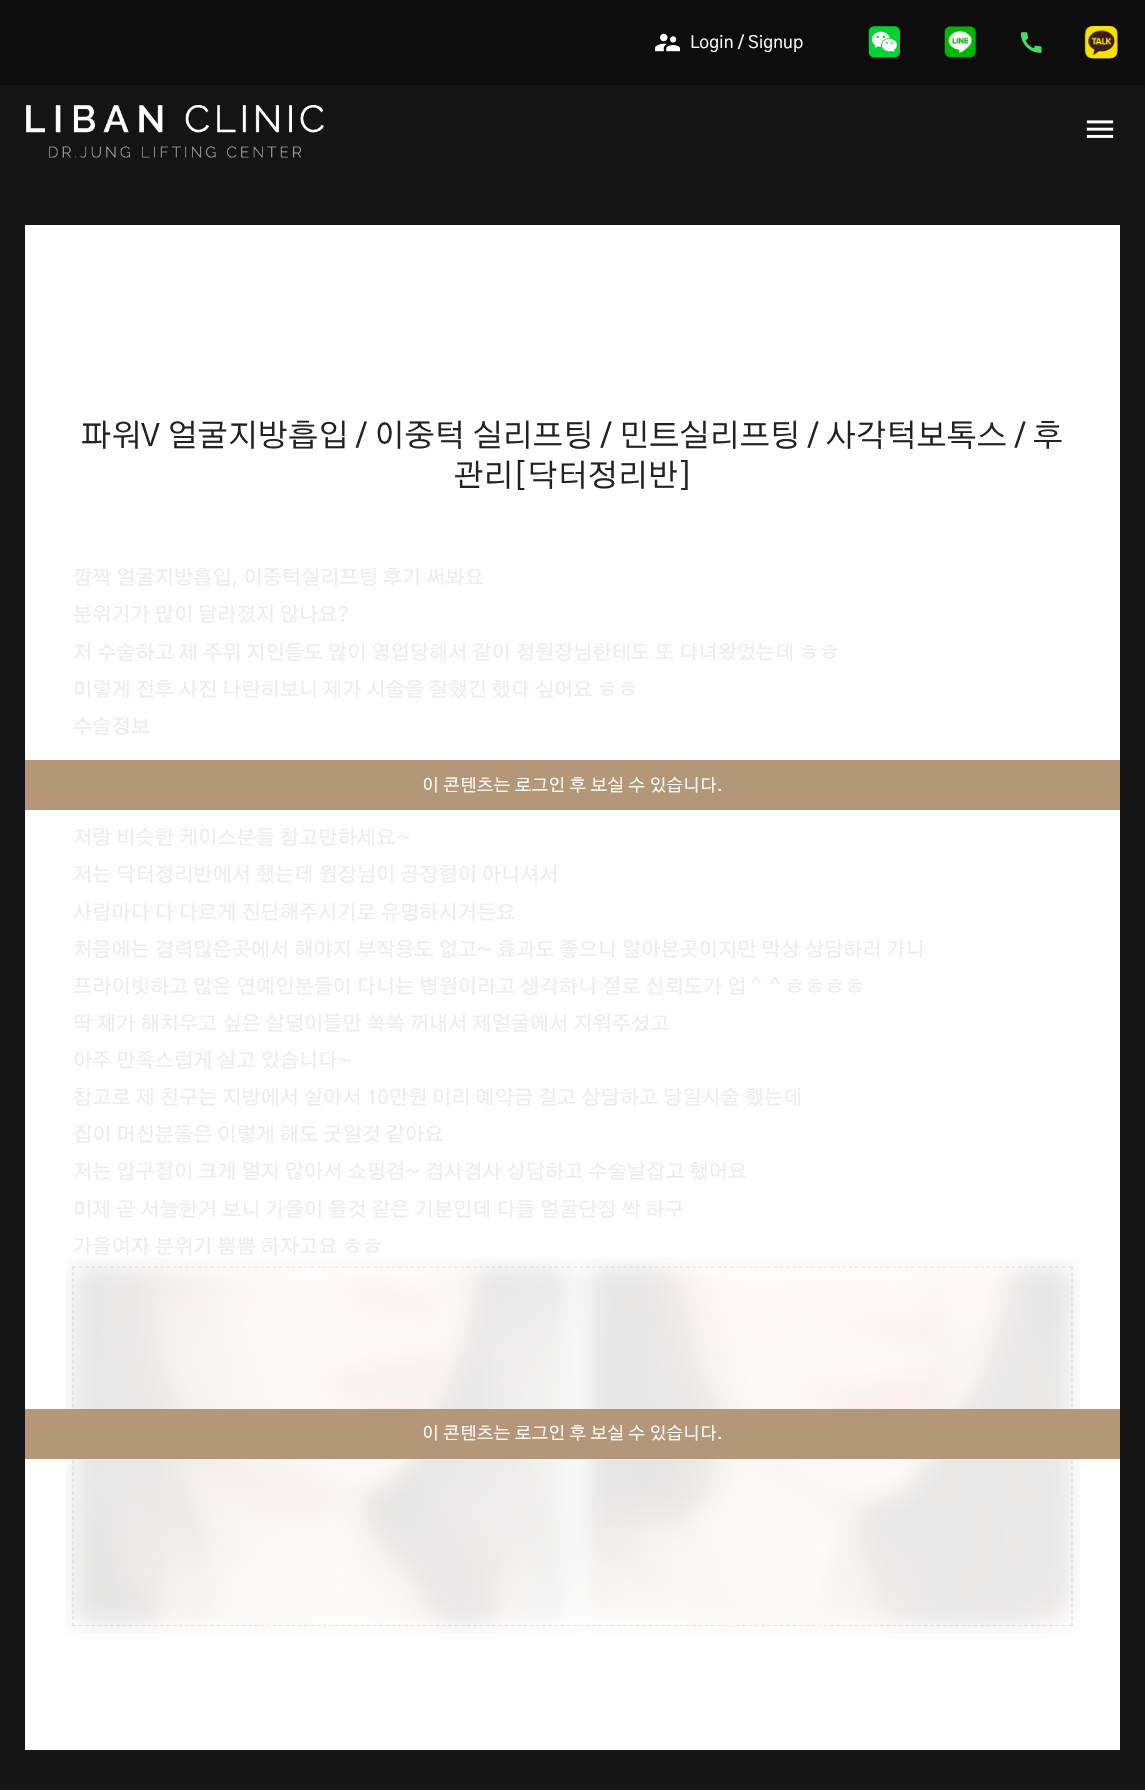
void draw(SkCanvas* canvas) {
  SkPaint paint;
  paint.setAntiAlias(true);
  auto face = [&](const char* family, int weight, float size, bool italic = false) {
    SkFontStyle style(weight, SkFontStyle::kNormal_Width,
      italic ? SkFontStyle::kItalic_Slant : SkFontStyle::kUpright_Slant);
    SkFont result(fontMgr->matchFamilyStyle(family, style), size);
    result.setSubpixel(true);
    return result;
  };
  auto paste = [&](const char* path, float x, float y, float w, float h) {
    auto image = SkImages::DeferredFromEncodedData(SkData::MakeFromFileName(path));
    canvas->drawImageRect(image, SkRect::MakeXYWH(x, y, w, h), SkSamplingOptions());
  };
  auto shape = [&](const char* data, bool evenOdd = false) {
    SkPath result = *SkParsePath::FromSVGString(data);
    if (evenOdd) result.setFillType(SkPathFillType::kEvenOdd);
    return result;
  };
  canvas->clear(0xff141414);
  paint.setColor(0xff0d0d0d);
  canvas->drawRect(SkRect::MakeXYWH(0, 0, 1145, 85), paint);
  paste("img/1.png", 655, 33, 25, 19);
  paste("img/2.png", 868, 26, 32, 32);
  paste("img/3.png", 944, 26, 32, 32);
  paste("img/4.png", 1020, 32, 22, 21);
  paste("img/5.png", 1084, 26, 34, 33);
  paste("img/6.png", 26, 105, 298, 53);
  paste("img/7.png", 1086, 120, 28, 18);
  paint.setColor(0xffffffff);
  canvas->drawRect(SkRect::MakeXYWH(25, 225, 1095, 1525), paint);
  paint.setStroke(true);
  paint.setStrokeWidth(1.2f);
  paint.setColor(0xffe6e6e6);
  paint.setPathEffect(SkDashPathEffect::Make({{3.75f, 2.51f}}, 0));
  canvas->drawPath(shape("M72.5 1267H1072.5"), paint);
  paint.setPathEffect(nullptr);
  paint.setPathEffect(SkDashPathEffect::Make({{3.75f, 2.5f}}, 0));
  canvas->drawPath(shape("M1072 1266V1626"), paint);
  paint.setPathEffect(nullptr);
  paint.setPathEffect(SkDashPathEffect::Make({{3.75f, 2.51f}}, 0));
  canvas->drawPath(shape("M72.5 1625.5H1072.5"), paint);
  paint.setPathEffect(nullptr);
  paint.setPathEffect(SkDashPathEffect::Make({{3.75f, 2.5f}}, 0));
  canvas->drawPath(shape("M73 1266V1626"), paint);
  paint.setPathEffect(nullptr);
  paste("img/8.png", 65, 1258, 1015, 376);
  paint.setStroke(false);
  paint.setColor(0xffb49678);
  canvas->drawRect(SkRect::MakeXYWH(25, 760, 1095, 50), paint);
  canvas->drawRect(SkRect::MakeXYWH(25, 1409, 1095, 50), paint);
  auto f0 = face("Gothic A1", 400, 17.5f);
  paint.setColor(0xffffffff);
  canvas->drawString("Login / Signup", 690, 48, f0, paint);
  auto f1 = face("Gothic A1", 400, 31.4f);
  paint.setColor(0xff222222);
  canvas->drawString("파워V 얼굴지방흡입 / 이중턱 실리프팅 / 민트실리프팅 / 사각턱보톡스 / 후", 81, 446, f1, paint);
  canvas->drawString("관리[닥터정리반]", 453, 486, f1, paint);
  auto f2 = face("Gothic A1", 400, 20);
  paint.setColor(0xffececec);
  {
    const struct { const char* s; float x, y; } items[] = {
      {"깜짝 얼굴지방흡입, 이중턱실리프팅 후기 써봐요", 73, 584},
      {"분위기가 많이 달라졌지 않나요?", 73, 621},
      {"저 수술하고 제 주위 지인들도 많이 영업당해서 같이 정원장님한테도 또 다녀왔었는데 ㅎㅎ", 73, 659},
      {"이렇게 전후 사진 나란히보니 제가 시술을 잘했긴 했다 싶어요 ㅎㅎ", 73, 696},
      {"수술정보", 73, 733},
      {"저랑 비슷한 케이스분들 참고만하세요~", 73, 844},
      {"저는 닥터정리반에서 했는데 원장님이 공장형이 아니셔서", 73, 881},
      {"사람마다 다 다르게 진단해주시기로 유명하시거든요", 73, 919},
      {"처음에는 경력많은곳에서 해야지 부작용도 없고~ 효과도 좋으니 알아본곳이지만 막상 상담하러 가니", 73, 956},
      {"프라이빗하고 많은 연예인분들이 다니는 병원이라고 생각하니 절로 신뢰도가 업 ^", 73, 993},
      {"^ ㅎㅎㅎㅎ", 770, 993},
      {"딱 제가 해치우고 싶은 살덩이들만 쏙쏙 꺼내서 제얼굴에서 지워주셨고", 73, 1030},
      {"아주 만족스럽게 살고 있습니다~", 73, 1067},
      {"참고로 제 친구는 지방에서 살아서 10만원 미리 예약금 걸고 상담하고 당일시술 했는데", 73, 1104},
      {"집이 머신분들은 이렇게 해도 굿일것 같아요", 73, 1141},
      {"저는 압구정이 크게 멀지 않아서 쇼핑겸~ 겸사겸사 상담하고 수술날잡고 했어요", 73, 1178},
      {"이제 곧 서늘한거 보니 가을이 올것 같은 기분인데 다들 얼굴단장 싹 하구", 73, 1216},
      {"가을여자 분위기 뿜뿜 하자고요 ㅎㅎ", 73, 1253},
    };
    for (auto [s, x, y] : items) {
      canvas->drawString(s, x, y, f2, paint);
    }
  }
  paint.setColor(0xffffffff);
  canvas->drawString("이 콘텐츠는 로그인 후 보실 수 있습니다.", 422, 791, f0, paint);
  canvas->drawString("이 콘텐츠는 로그인 후 보실 수 있습니다.", 422, 1439, f0, paint);
}
